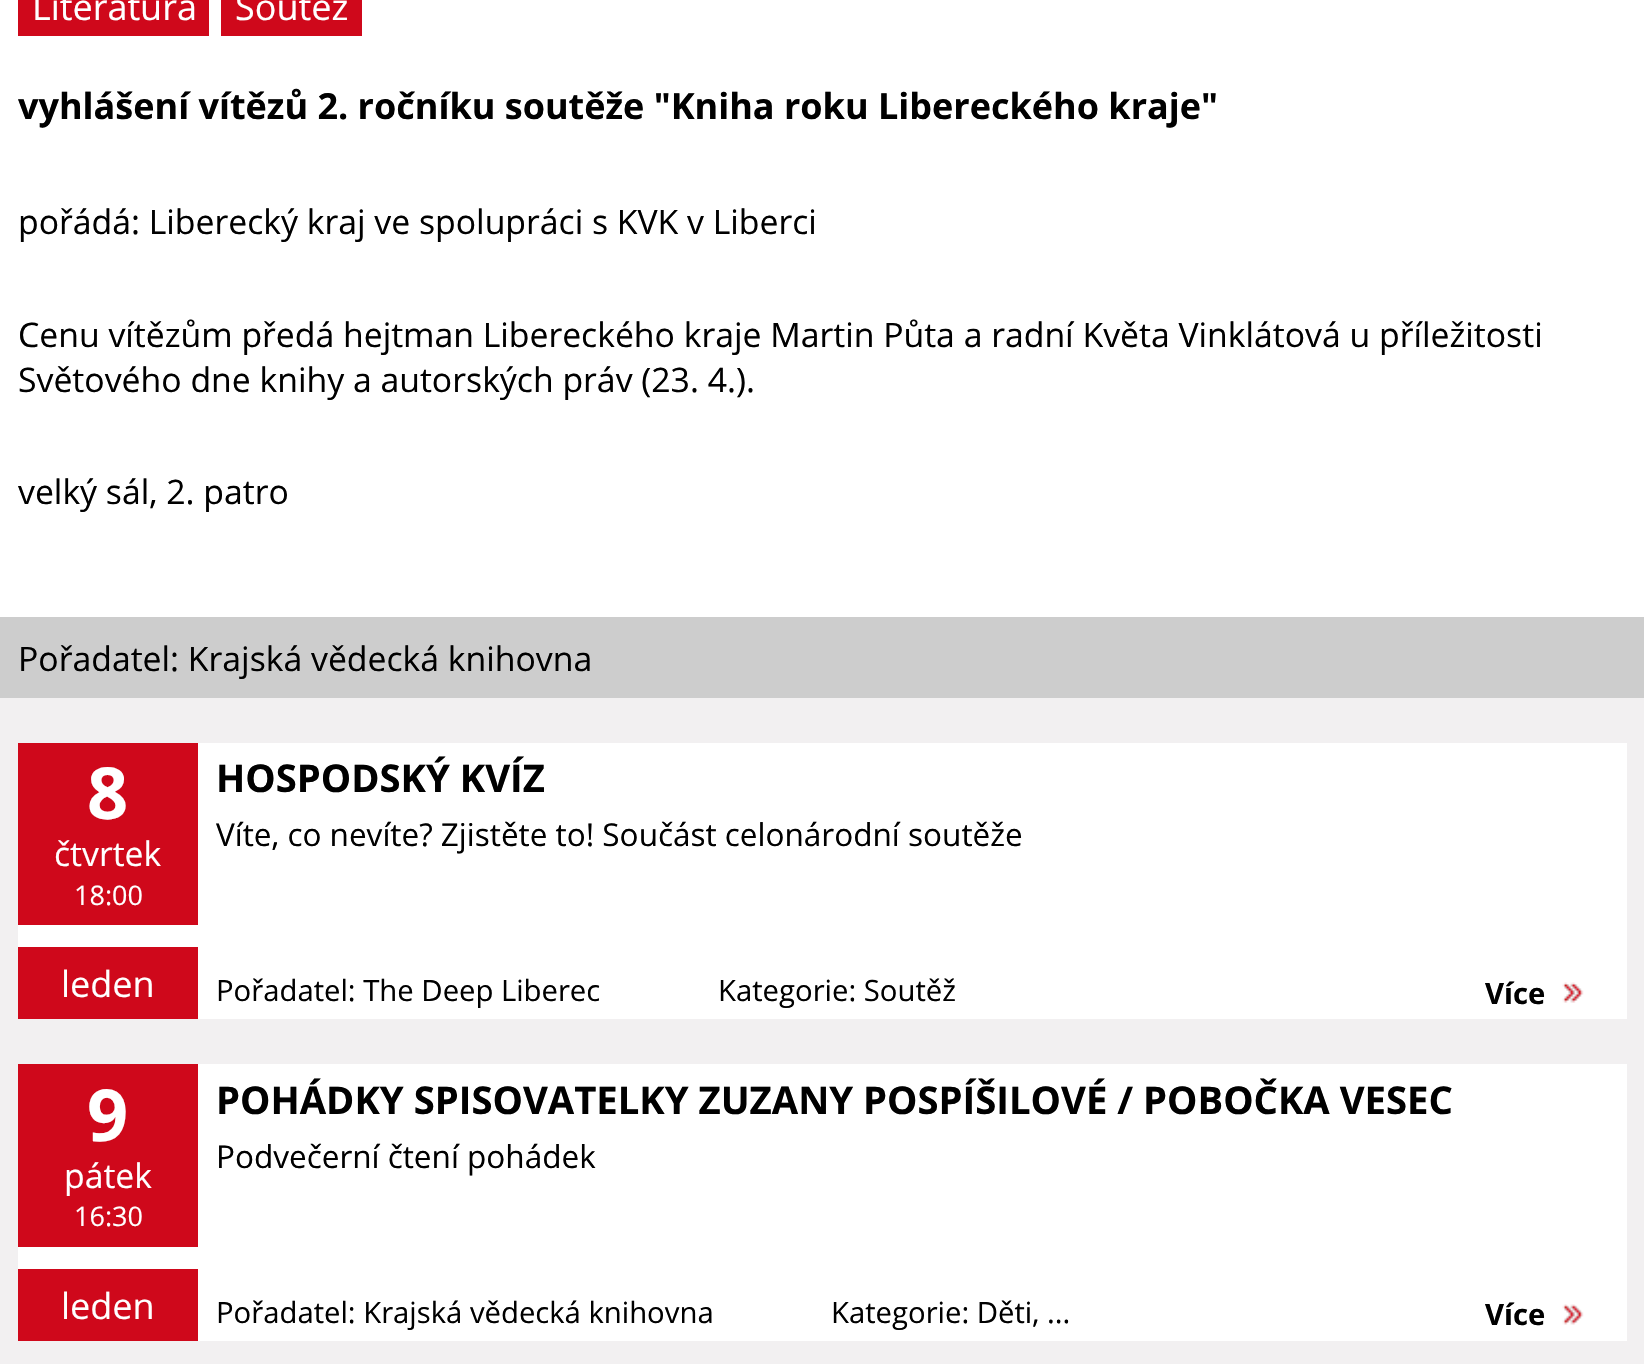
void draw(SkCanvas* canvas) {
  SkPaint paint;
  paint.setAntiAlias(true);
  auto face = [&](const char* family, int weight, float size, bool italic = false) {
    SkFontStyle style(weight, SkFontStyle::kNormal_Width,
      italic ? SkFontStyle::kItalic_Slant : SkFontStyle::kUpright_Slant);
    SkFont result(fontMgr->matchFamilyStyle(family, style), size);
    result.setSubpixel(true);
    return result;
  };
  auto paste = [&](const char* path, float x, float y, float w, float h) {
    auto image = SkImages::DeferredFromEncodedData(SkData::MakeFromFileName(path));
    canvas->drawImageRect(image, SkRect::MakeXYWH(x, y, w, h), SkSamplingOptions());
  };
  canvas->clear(0xfff2f0f1);
  {
    const struct { float x, y, w, h; SkColor color; } items[] = {
      {0, 0, 1644, 617, 0xffffffff},
      {18, 0, 191, 36, 0xffcf081b},
      {221, 0, 141, 36, 0xffcf081b},
      {0, 617, 1644, 81, 0xffcdcdcd},
      {18, 743, 1609, 276, 0xffffffff},
      {18, 743, 180, 182, 0xffcf081b},
      {18, 947, 180, 72, 0xffcf081b},
    };
    for (auto [x, y, w, h, color] : items) {
      paint.setColor(color);
      canvas->drawRect(SkRect::MakeXYWH(x, y, w, h), paint);
    }
  }
  paste("img/1.png", 1562, 982, 22, 21);
  {
    const struct { float x, y, w, h; SkColor color; } items[] = {
      {18, 1064, 1609, 277, 0xffffffff},
      {18, 1064, 180, 183, 0xffcf081b},
      {18, 1269, 180, 72, 0xffcf081b},
    };
    for (auto [x, y, w, h, color] : items) {
      paint.setColor(color);
      canvas->drawRect(SkRect::MakeXYWH(x, y, w, h), paint);
    }
  }
  paste("img/2.png", 1562, 1304, 22, 21);
  auto f0 = face("Open Sans", 400, 36);
  paint.setColor(0xffffffff);
  canvas->drawString("Literatura", 32, 20, f0, paint);
  canvas->drawString("Soutěž", 235, 20, f0, paint);
  auto f1 = face("Open Sans", 700, 36);
  paint.setColor(0xff000000);
  canvas->drawString("vyhlášení vítězů 2. ročníku soutěže \"Kniha roku Libereckého kraje\"", 18, 119, f1, paint);
  auto f2 = face("Open Sans", 400, 33.75f);
  {
    const struct { const char* s; float x, y; } items[] = {
      {"pořádá: Liberecký kraj ve spolupráci s KVK v Liberci", 18, 234},
      {"Cenu vítězům předá hejtman Libereckého kraje Martin Půta a radní Květa Vinklátová u příležitosti", 18, 347},
      {"Světového dne knihy a autorských práv (23. 4.).", 18, 392},
      {"velký sál, 2. patro", 18, 504},
      {"Pořadatel: Krajská vědecká knihovna", 18, 671},
    };
    for (auto [s, x, y] : items) {
      canvas->drawString(s, x, y, f2, paint);
    }
  }
  auto f3 = face("Open Sans", 700, 72);
  paint.setColor(0xffffffff);
  canvas->drawString("8", 87, 819, f3, paint);
  canvas->drawString("čtvrtek", 54, 866, f2, paint);
  auto f4 = face("Open Sans", 400, 27);
  canvas->drawString("18:00", 74, 905, f4, paint);
  canvas->drawString("leden", 61, 997, f0, paint);
  auto f5 = face("Open Sans", 700, 38.25f);
  paint.setColor(0xff000000);
  canvas->drawString("HOSPODSKÝ KVÍZ", 216, 792, f5, paint);
  auto f6 = face("Open Sans", 400, 31.5f);
  canvas->drawString("Víte, co nevíte? Zjistěte to! Součást celonárodní soutěže", 216, 846, f6, paint);
  auto f7 = face("Open Sans", 400, 29.25f);
  canvas->drawString("Pořadatel: The Deep Liberec", 216, 1001, f7, paint);
  canvas->drawString("Kategorie: Soutěž", 718, 1001, f7, paint);
  auto f8 = face("Open Sans", 700, 29.25f);
  canvas->drawString("Více", 1485, 1004, f8, paint);
  paint.setColor(0xffffffff);
  canvas->drawString("9", 87, 1141, f3, paint);
  canvas->drawString("pátek", 64, 1188, f2, paint);
  canvas->drawString("16:30", 74, 1226, f4, paint);
  canvas->drawString("leden", 61, 1319, f0, paint);
  paint.setColor(0xff000000);
  canvas->drawString("POHÁDKY SPISOVATELKY ZUZANY POSPÍŠILOVÉ / POBOČKA VESEC", 216, 1114, f5, paint);
  canvas->drawString("Podvečerní čtení pohádek", 216, 1168, f6, paint);
  canvas->drawString("Pořadatel: Krajská vědecká knihovna", 216, 1323, f7, paint);
  canvas->drawString("Kategorie: Děti, ...", 831, 1323, f7, paint);
  canvas->drawString("Více", 1485, 1325, f8, paint);
}
